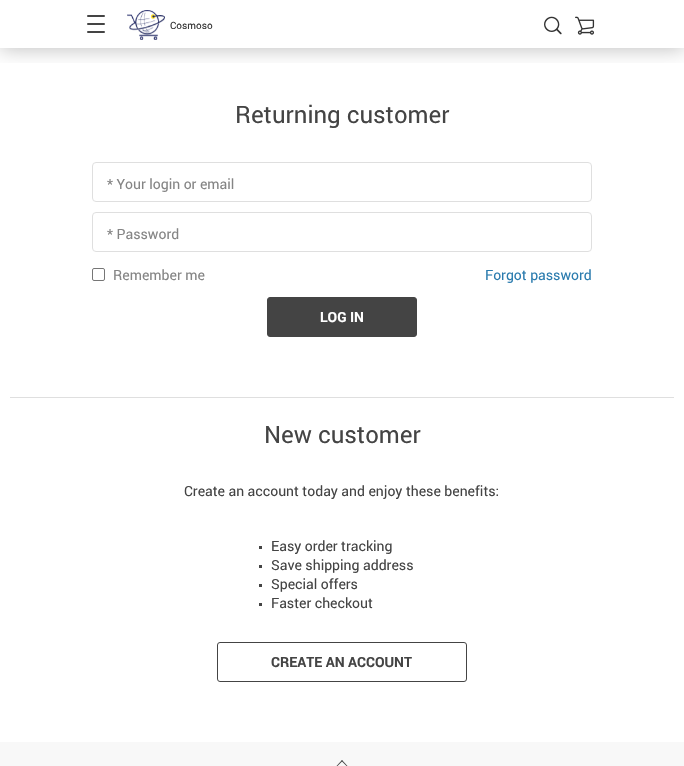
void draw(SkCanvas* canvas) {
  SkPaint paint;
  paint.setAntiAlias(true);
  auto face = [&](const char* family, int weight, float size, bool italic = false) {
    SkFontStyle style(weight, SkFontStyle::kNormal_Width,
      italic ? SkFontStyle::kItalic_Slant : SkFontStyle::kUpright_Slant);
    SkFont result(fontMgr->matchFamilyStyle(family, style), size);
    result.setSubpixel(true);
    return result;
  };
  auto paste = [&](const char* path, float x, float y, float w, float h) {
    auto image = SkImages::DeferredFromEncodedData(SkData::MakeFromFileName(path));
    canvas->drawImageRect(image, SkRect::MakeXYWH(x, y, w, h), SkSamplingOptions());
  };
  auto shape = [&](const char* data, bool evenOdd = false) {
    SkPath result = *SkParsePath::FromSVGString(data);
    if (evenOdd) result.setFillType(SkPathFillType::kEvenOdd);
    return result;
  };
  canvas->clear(0xffffffff);
  canvas->save();
  canvas->clipRect(SkRect::MakeXYWH(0, 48, 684, 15));
  paint.setColor(0x40000000);
  paint.setMaskFilter(SkMaskFilter::MakeBlur(kNormal_SkBlurStyle, 10));
  canvas->drawRect(SkRect::MakeXYWH(0, 1, 684, 48), paint);
  paint.setMaskFilter(nullptr);
  canvas->restore();
  paint.setColor(0xff444444);
  canvas->drawRoundRect(SkRect::MakeXYWH(87, 15, 18, 2), 1, 1, paint);
  canvas->drawRoundRect(SkRect::MakeXYWH(87, 23, 18, 2), 1, 1, paint);
  canvas->drawRoundRect(SkRect::MakeXYWH(87, 31, 18, 2), 1, 1, paint);
  paste("img/1.png", 127, 10, 38, 30);
  paste("img/2.png", 544, 16, 18, 19);
  paste("img/3.png", 575, 16, 20, 19);
  paint.setStroke(true);
  paint.setStrokeWidth(1);
  paint.setColor(0xffdfdfdf);
  canvas->drawRoundRect(SkRect::MakeXYWH(92.5f, 162.5f, 499, 39), 3.5f, 3.5f, paint);
  canvas->drawRoundRect(SkRect::MakeXYWH(92.5f, 212.5f, 499, 39), 3.5f, 3.5f, paint);
  paint.setColor(0xff767676);
  canvas->drawRoundRect(SkRect::MakeXYWH(92.5f, 268.5f, 12, 12), 1.5f, 1.5f, paint);
  paint.setStroke(false);
  paint.setColor(0xff444444);
  canvas->drawRoundRect(SkRect::MakeXYWH(267.5f, 297.5f, 149, 39), 2.5f, 2.5f, paint);
  paint.setStroke(true);
  canvas->drawRoundRect(SkRect::MakeXYWH(267.5f, 297.5f, 149, 39), 2.5f, 2.5f, paint);
  paint.setStroke(false);
  {
    const struct { float x, y, w, h; SkColor color; } items[] = {
      {10, 397, 664, 1, 0xffdfdfdf},
      {259, 546, 3, 3, 0xff444444},
      {259, 565, 3, 3, 0xff444444},
      {259, 584, 3, 3, 0xff444444},
      {259, 603, 3, 3, 0xff444444},
    };
    for (auto [x, y, w, h, color] : items) {
      paint.setColor(color);
      canvas->drawRect(SkRect::MakeXYWH(x, y, w, h), paint);
    }
  }
  paint.setStroke(true);
  canvas->drawRoundRect(SkRect::MakeXYWH(217.5f, 642.5f, 249, 39), 2.5f, 2.5f, paint);
  paint.setStroke(false);
  paint.setColor(0xfff8f8f8);
  canvas->drawRect(SkRect::MakeXYWH(0, 742, 684, 24), paint);
  paint.setColor(0xff444444);
  canvas->drawPath(shape("M336.5 766L342 760L342.5 761L337 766.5Z"), paint);
  canvas->drawPath(shape("M341.5 761L342 760L347.5 766L347 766.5Z"), paint);
  auto f0 = face("Roboto", 400, 10);
  paint.setColor(0xff333333);
  canvas->drawString("Cosmoso", 170, 29, f0, paint);
  auto f1 = face("Roboto", 400, 24);
  paint.setColor(0xff444444);
  canvas->drawString("Returning customer", 235, 123, f1, paint);
  auto f2 = face("Roboto", 400, 14);
  paint.setColor(0xff858585);
  {
    const struct { const char* s; float x, y; } items[] = {
      {"* Your login or email", 107, 189},
      {"* Password", 107, 239},
      {"Remember me", 113, 280},
    };
    for (auto [s, x, y] : items) {
      canvas->drawString(s, x, y, f2, paint);
    }
  }
  paint.setColor(0xff2a7bae);
  canvas->drawString("Forgot password", 485, 280, f2, paint);
  auto f3 = face("Roboto", 700, 14);
  paint.setColor(0xffffffff);
  canvas->drawString("LOG IN", 320, 322, f3, paint);
  paint.setColor(0xff444444);
  canvas->drawString("New customer", 264, 443, f1, paint);
  {
    const struct { const char* s; float x, y; } items[] = {
      {"Create an account today and enjoy these benefits:", 184, 496},
      {"Easy order tracking", 271, 551},
      {"Save shipping address", 271, 570},
      {"Special offers", 271, 589},
      {"Faster checkout", 271, 608},
    };
    for (auto [s, x, y] : items) {
      canvas->drawString(s, x, y, f2, paint);
    }
  }
  canvas->drawString("CREATE AN ACCOUNT", 271, 667, f3, paint);
}
